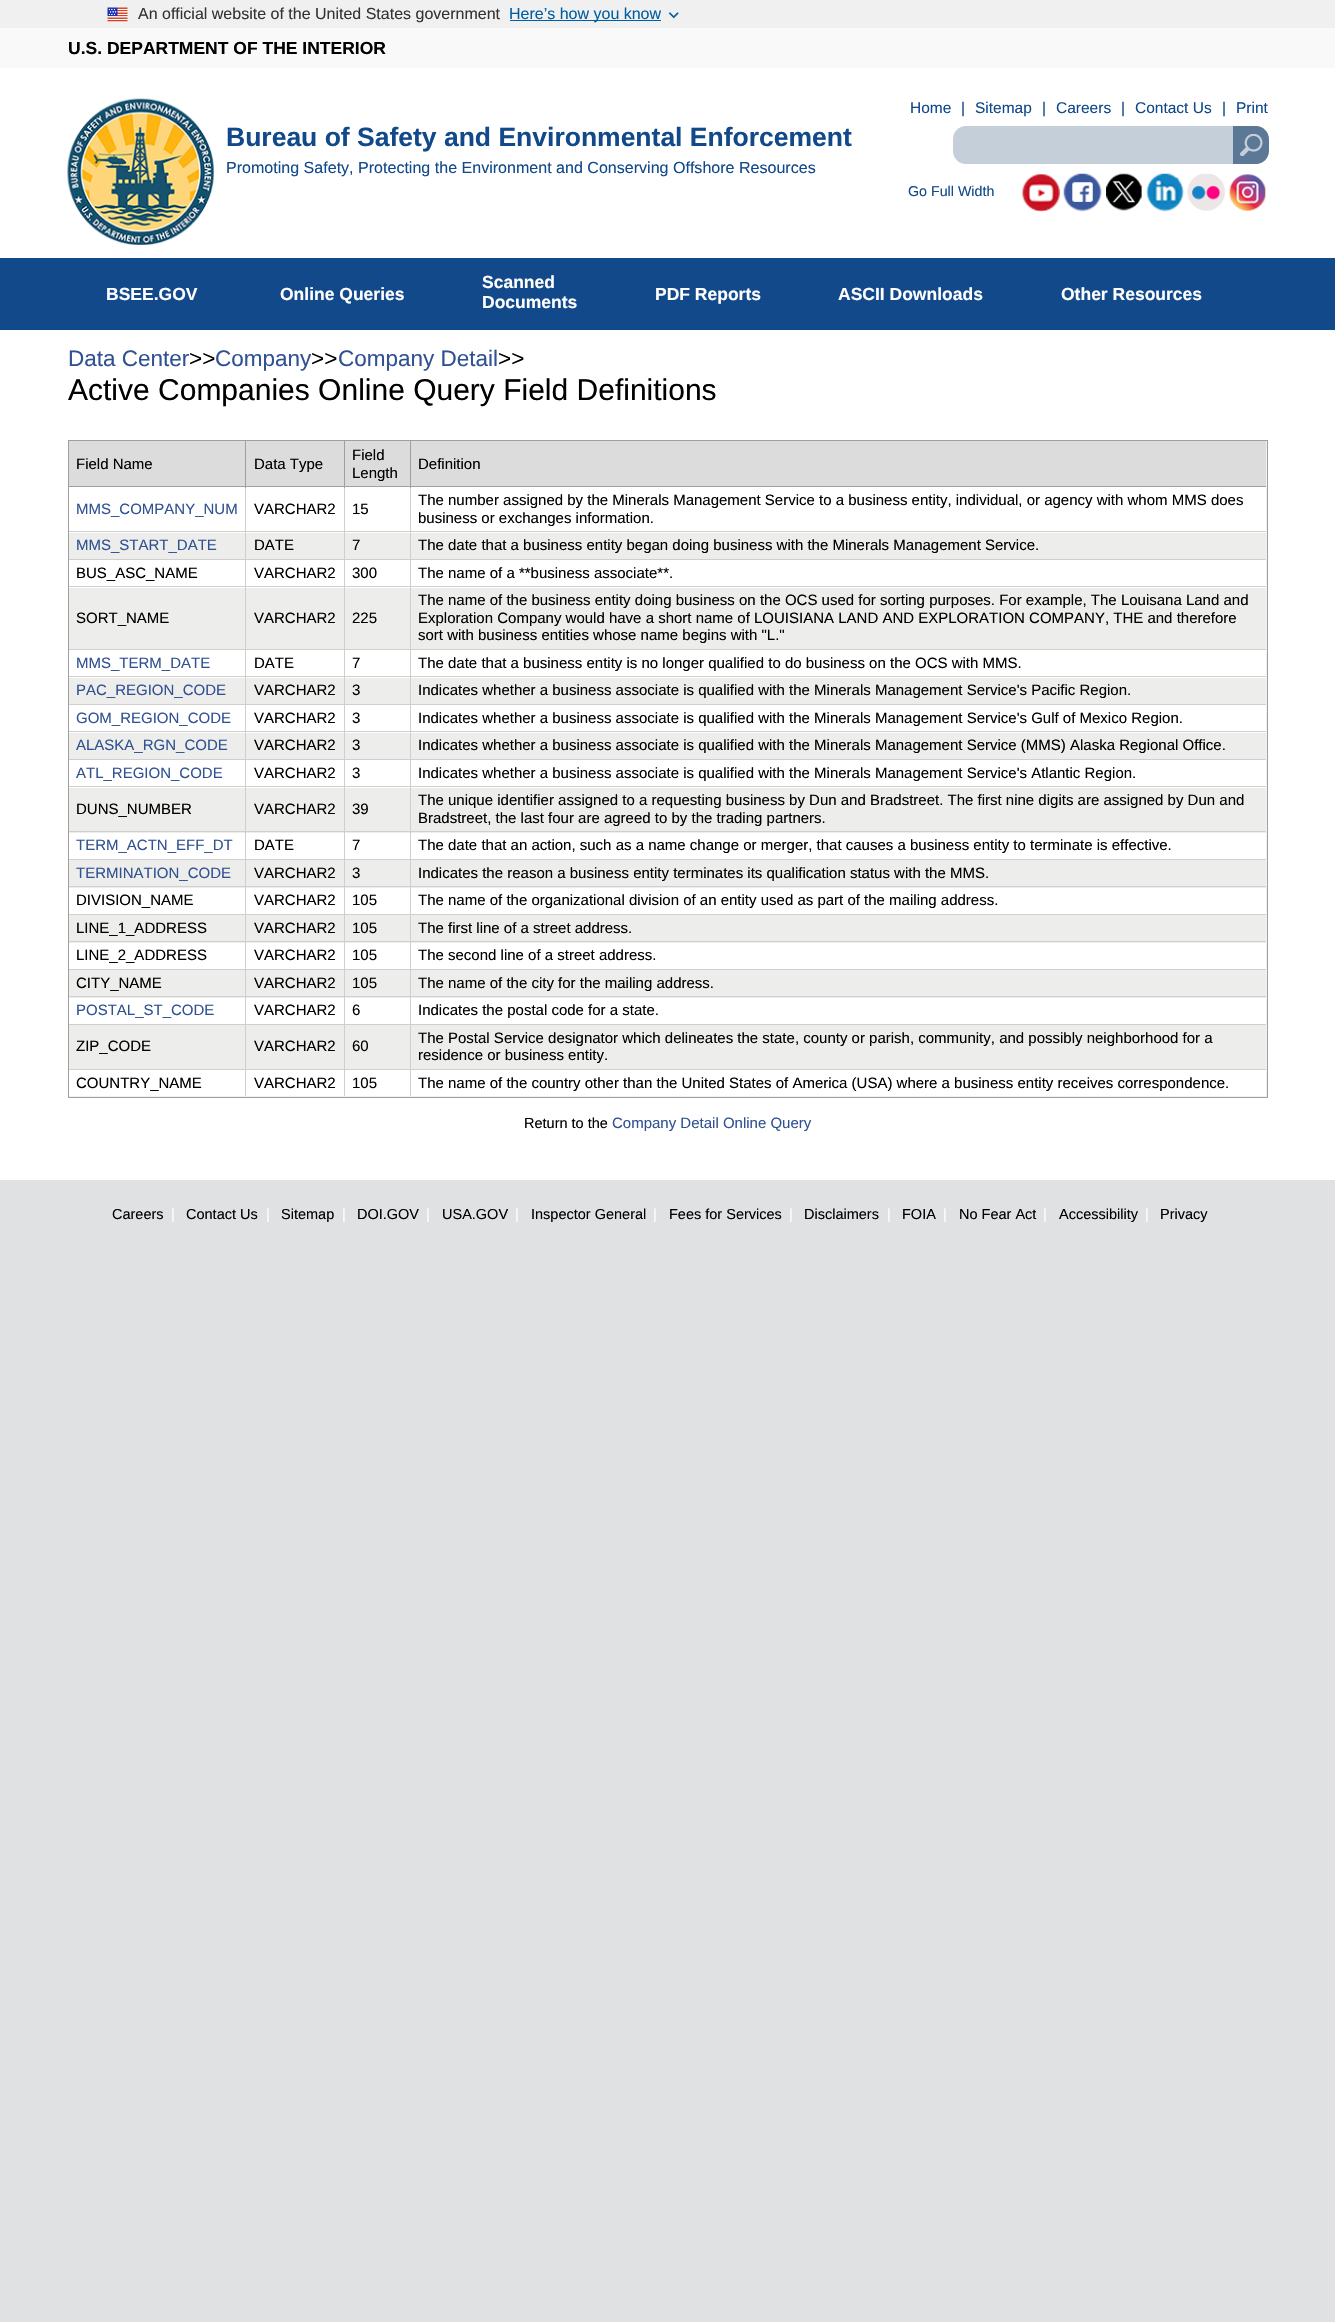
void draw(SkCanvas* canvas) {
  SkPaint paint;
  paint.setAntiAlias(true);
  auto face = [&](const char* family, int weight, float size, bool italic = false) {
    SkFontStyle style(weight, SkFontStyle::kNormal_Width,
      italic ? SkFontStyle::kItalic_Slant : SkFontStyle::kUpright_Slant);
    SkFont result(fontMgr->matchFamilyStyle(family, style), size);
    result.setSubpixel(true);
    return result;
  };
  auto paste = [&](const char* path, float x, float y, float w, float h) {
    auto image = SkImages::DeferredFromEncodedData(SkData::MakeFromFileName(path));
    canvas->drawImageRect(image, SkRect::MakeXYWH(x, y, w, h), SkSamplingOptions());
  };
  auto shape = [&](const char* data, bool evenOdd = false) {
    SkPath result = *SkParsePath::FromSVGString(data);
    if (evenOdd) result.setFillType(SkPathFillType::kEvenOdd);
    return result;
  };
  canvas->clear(0xffffffff);
  paint.setColor(0xfff0f0f0);
  canvas->drawRect(SkRect::MakeXYWH(0, 0, 1335, 28), paint);
  paste("img/1.png", 107, 7, 21, 15);
  paint.setColor(0xff005ea2);
  canvas->drawRect(SkRect::MakeXYWH(510, 20, 151, 1), paint);
  paste("img/2.png", 668, 12, 11, 7);
  paint.setColor(0xfff9f9f9);
  canvas->drawRect(SkRect::MakeXYWH(0, 28, 1335, 40), paint);
  paste("img/3.png", 67, 98, 147, 147);
  paint.setColor(0xffc5cfda);
  canvas->drawRoundRect(SkRect::MakeXYWH(953, 126, 315, 38), 13, 13, paint);
  paint.setColor(0xff5c7897);
  canvas->drawPath(shape("M1233 126H1256C1263 126 1269 132 1269 139V151C1269 158 1263 164 1256 164H1233Z"), paint);
  paste("img/4.png", 1240, 134, 23, 22);
  paste("img/5.png", 1022, 174, 38, 38);
  paste("img/6.png", 1063, 173, 39, 39);
  paste("img/7.png", 1106, 173, 36, 38);
  paste("img/8.png", 1146, 173, 38, 39);
  paste("img/9.png", 1187, 173, 38, 38);
  paste("img/10.png", 1229, 174, 37, 37);
  paint.setColor(0xff11498a);
  canvas->drawRect(SkRect::MakeXYWH(0, 258, 1335, 72), paint);
  paint.setColor(0xfff2f2f2);
  canvas->drawRect(SkRect::MakeXYWH(68.5f, 440.5f, 1199, 657), paint);
  paint.setStroke(true);
  paint.setStrokeWidth(1);
  paint.setColor(0xff9f9f9f);
  canvas->drawRect(SkRect::MakeXYWH(68.5f, 440.5f, 1199, 657), paint);
  paint.setStroke(false);
  {
    const struct { float x, y, w, h; SkColor color; } items[] = {
      {69, 487, 1197, 609, 0xffffffff},
      {69, 441, 176, 45, 0xffdcdcdc},
      {245, 441, 1, 47, 0xff9f9f9f},
      {69, 486, 177, 1, 0xff9f9f9f},
      {246, 441, 98, 45, 0xffdcdcdc},
      {344, 441, 1, 47, 0xff9f9f9f},
      {246, 486, 99, 1, 0xff9f9f9f},
      {345, 441, 65, 45, 0xffdcdcdc},
      {410, 441, 1, 47, 0xff9f9f9f},
      {345, 486, 921, 1, 0xff9f9f9f},
      {411, 441, 855, 45, 0xffdcdcdc},
      {69, 533, 1197, 26, 0xffededeb},
      {69, 588, 1197, 61, 0xffededeb},
      {69, 678, 1197, 26, 0xffededeb},
      {69, 733, 1197, 26, 0xffededeb},
      {69, 788, 1197, 45, 0xffededeb},
      {69, 860, 1197, 28, 0xffededeb},
      {69, 915, 1197, 28, 0xffededeb},
      {69, 970, 1197, 28, 0xffededeb},
      {69, 1025, 1197, 44, 0xffededeb},
      {245, 488, 1, 608, 0xffcfcfcf},
      {69, 531, 177, 1, 0xffcfcfcf},
      {344, 488, 1, 608, 0xffcfcfcf},
      {246, 531, 99, 1, 0xffcfcfcf},
      {410, 488, 1, 608, 0xffcfcfcf},
      {345, 531, 921, 1, 0xffcfcfcf},
      {69, 559, 1197, 1, 0xffcfcfcf},
      {69, 586, 1197, 1, 0xffcfcfcf},
      {69, 649, 1197, 1, 0xffcfcfcf},
      {69, 676, 1197, 1, 0xffcfcfcf},
      {69, 704, 1197, 1, 0xffcfcfcf},
      {69, 731, 1197, 1, 0xffcfcfcf},
      {69, 759, 1197, 1, 0xffcfcfcf},
      {69, 786, 1197, 1, 0xffcfcfcf},
      {69, 831, 1197, 1, 0xffcfcfcf},
      {69, 859, 1197, 1, 0xffcfcfcf},
      {69, 886, 1197, 1, 0xffcfcfcf},
      {69, 914, 1197, 1, 0xffcfcfcf},
      {69, 941, 1197, 1, 0xffcfcfcf},
      {69, 969, 1197, 1, 0xffcfcfcf},
      {69, 996, 1197, 1, 0xffcfcfcf},
      {69, 1024, 1197, 1, 0xffcfcfcf},
      {69, 1069, 1197, 1, 0xffcfcfcf},
      {68, 1180, 1200, 98, 0xffdfe1e2},
    };
    for (auto [x, y, w, h, color] : items) {
      paint.setColor(color);
      canvas->drawRect(SkRect::MakeXYWH(x, y, w, h), paint);
    }
  }
  canvas->drawPath(shape("M68 1180V1278H1268V1180H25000V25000H-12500V1180Z"), paint);
  auto f0 = face("Liberation Sans", 400, 16);
  paint.setColor(0xff333333);
  canvas->drawString("An official website of the United States government", 138, 19, f0, paint);
  paint.setColor(0xff005ea2);
  canvas->drawString("Here’s how you know", 509, 19, f0, paint);
  auto f1 = face("Liberation Sans", 700, 17.5f);
  paint.setColor(0xff000000);
  canvas->drawString("U.S. DEPARTMENT OF THE INTERIOR", 68, 54, f1, paint);
  auto f2 = face("Liberation Sans", 700, 26.5f);
  paint.setColor(0xff11498a);
  canvas->drawString("Bureau of Safety and Environmental Enforcement", 226, 146, f2, paint);
  auto f3 = face("Liberation Sans", 400, 16.05f);
  canvas->drawString("Promoting Safety, Protecting the Environment and Conserving Offshore Resources", 226, 173, f3, paint);
  auto f4 = face("Liberation Sans", 400, 15.5f);
  {
    const struct { const char* s; float x, y; } items[] = {
      {"Home", 910, 113},
      {"|", 961, 113},
      {"Sitemap", 975, 113},
      {"|", 1042, 113},
      {"Careers", 1056, 113},
      {"|", 1121, 113},
      {"Contact Us", 1135, 113},
      {"|", 1222, 113},
      {"Print", 1236, 113},
    };
    for (auto [s, x, y] : items) {
      canvas->drawString(s, x, y, f4, paint);
    }
  }
  auto f5 = face("Liberation Sans", 400, 14.25f);
  canvas->drawString("Go Full Width", 908, 196, f5, paint);
  paint.setColor(0xffffffff);
  {
    const struct { const char* s; float x, y; } items[] = {
      {"BSEE.GOV", 106, 300},
      {"Online Queries", 280, 300},
      {"Scanned", 482, 288},
      {"Documents", 482, 308},
      {"PDF Reports", 655, 300},
      {"ASCII Downloads", 838, 300},
      {"Other Resources", 1061, 300},
    };
    for (auto [s, x, y] : items) {
      canvas->drawString(s, x, y, f1, paint);
    }
  }
  auto f6 = face("Liberation Sans", 400, 22.5f);
  paint.setColor(0xff305192);
  canvas->drawString("Data Center", 68, 366, f6, paint);
  paint.setColor(0xff000000);
  canvas->drawString(">>", 189, 366, f6, paint);
  paint.setColor(0xff305192);
  canvas->drawString("Company", 215, 366, f6, paint);
  paint.setColor(0xff000000);
  canvas->drawString(">>", 311, 366, f6, paint);
  paint.setColor(0xff305192);
  canvas->drawString("Company Detail", 338, 366, f6, paint);
  paint.setColor(0xff000000);
  canvas->drawString(">>", 498, 366, f6, paint);
  auto f7 = face("Liberation Sans", 400, 30);
  canvas->drawString("Active Companies Online Query Field Definitions", 68, 400, f7, paint);
  auto f8 = face("Liberation Sans", 400, 15);
  {
    const struct { const char* s; float x, y; } items[] = {
      {"Field Name", 76, 469},
      {"Data Type", 254, 469},
      {"Field", 352, 460},
      {"Length", 352, 478},
      {"Definition", 418, 469},
    };
    for (auto [s, x, y] : items) {
      canvas->drawString(s, x, y, f8, paint);
    }
  }
  paint.setColor(0xff305192);
  canvas->drawString("MMS_COMPANY_NUM", 76, 514, f8, paint);
  paint.setColor(0xff000000);
  {
    const struct { const char* s; float x, y; } items[] = {
      {"VARCHAR2", 254, 514},
      {"15", 352, 514},
      {"The number assigned by the Minerals Management Service to a business entity, individual, or agency with whom MMS does", 418, 505},
      {"business or exchanges information.", 418, 523},
    };
    for (auto [s, x, y] : items) {
      canvas->drawString(s, x, y, f8, paint);
    }
  }
  paint.setColor(0xff305192);
  canvas->drawString("MMS_START_DATE", 76, 550, f8, paint);
  paint.setColor(0xff000000);
  {
    const struct { const char* s; float x, y; } items[] = {
      {"DATE", 254, 550},
      {"7", 352, 550},
      {"The date that a business entity began doing business with the Minerals Management Service.", 418, 550},
      {"BUS_ASC_NAME", 76, 578},
      {"VARCHAR2", 254, 578},
      {"300", 352, 578},
      {"The name of a **business associate**.", 418, 578},
      {"SORT_NAME", 76, 623},
      {"VARCHAR2", 254, 623},
      {"225", 352, 623},
      {"The name of the business entity doing business on the OCS used for sorting purposes. For example, The Louisana Land and", 418, 605},
      {"Exploration Company would have a short name of LOUISIANA LAND AND EXPLORATION COMPANY, THE and therefore", 418, 623},
      {"sort with business entities whose name begins with \"L.\"", 418, 640},
    };
    for (auto [s, x, y] : items) {
      canvas->drawString(s, x, y, f8, paint);
    }
  }
  paint.setColor(0xff305192);
  canvas->drawString("MMS_TERM_DATE", 76, 668, f8, paint);
  paint.setColor(0xff000000);
  {
    const struct { const char* s; float x, y; } items[] = {
      {"DATE", 254, 668},
      {"7", 352, 668},
      {"The date that a business entity is no longer qualified to do business on the OCS with MMS.", 418, 668},
    };
    for (auto [s, x, y] : items) {
      canvas->drawString(s, x, y, f8, paint);
    }
  }
  paint.setColor(0xff305192);
  canvas->drawString("PAC_REGION_CODE", 76, 695, f8, paint);
  paint.setColor(0xff000000);
  {
    const struct { const char* s; float x, y; } items[] = {
      {"VARCHAR2", 254, 695},
      {"3", 352, 695},
      {"Indicates whether a business associate is qualified with the Minerals Management Service's Pacific Region.", 418, 695},
    };
    for (auto [s, x, y] : items) {
      canvas->drawString(s, x, y, f8, paint);
    }
  }
  paint.setColor(0xff305192);
  canvas->drawString("GOM_REGION_CODE", 76, 723, f8, paint);
  paint.setColor(0xff000000);
  {
    const struct { const char* s; float x, y; } items[] = {
      {"VARCHAR2", 254, 723},
      {"3", 352, 723},
      {"Indicates whether a business associate is qualified with the Minerals Management Service's Gulf of Mexico Region.", 418, 723},
    };
    for (auto [s, x, y] : items) {
      canvas->drawString(s, x, y, f8, paint);
    }
  }
  paint.setColor(0xff305192);
  canvas->drawString("ALASKA_RGN_CODE", 76, 750, f8, paint);
  paint.setColor(0xff000000);
  {
    const struct { const char* s; float x, y; } items[] = {
      {"VARCHAR2", 254, 750},
      {"3", 352, 750},
      {"Indicates whether a business associate is qualified with the Minerals Management Service (MMS) Alaska Regional Office.", 418, 750},
    };
    for (auto [s, x, y] : items) {
      canvas->drawString(s, x, y, f8, paint);
    }
  }
  paint.setColor(0xff305192);
  canvas->drawString("ATL_REGION_CODE", 76, 778, f8, paint);
  paint.setColor(0xff000000);
  {
    const struct { const char* s; float x, y; } items[] = {
      {"VARCHAR2", 254, 778},
      {"3", 352, 778},
      {"Indicates whether a business associate is qualified with the Minerals Management Service's Atlantic Region.", 418, 778},
      {"DUNS_NUMBER", 76, 814},
      {"VARCHAR2", 254, 814},
      {"39", 352, 814},
      {"The unique identifier assigned to a requesting business by Dun and Bradstreet. The first nine digits are assigned by Dun and", 418, 805},
      {"Bradstreet, the last four are agreed to by the trading partners.", 418, 823},
    };
    for (auto [s, x, y] : items) {
      canvas->drawString(s, x, y, f8, paint);
    }
  }
  paint.setColor(0xff305192);
  canvas->drawString("TERM_ACTN_EFF_DT", 76, 850, f8, paint);
  paint.setColor(0xff000000);
  {
    const struct { const char* s; float x, y; } items[] = {
      {"DATE", 254, 850},
      {"7", 352, 850},
      {"The date that an action, such as a name change or merger, that causes a business entity to terminate is effective.", 418, 850},
    };
    for (auto [s, x, y] : items) {
      canvas->drawString(s, x, y, f8, paint);
    }
  }
  paint.setColor(0xff305192);
  canvas->drawString("TERMINATION_CODE", 76, 878, f8, paint);
  paint.setColor(0xff000000);
  {
    const struct { const char* s; float x, y; } items[] = {
      {"VARCHAR2", 254, 878},
      {"3", 352, 878},
      {"Indicates the reason a business entity terminates its qualification status with the MMS.", 418, 878},
      {"DIVISION_NAME", 76, 905},
      {"VARCHAR2", 254, 905},
      {"105", 352, 905},
      {"The name of the organizational division of an entity used as part of the mailing address.", 418, 905},
      {"LINE_1_ADDRESS", 76, 933},
      {"VARCHAR2", 254, 933},
      {"105", 352, 933},
      {"The first line of a street address.", 418, 933},
      {"LINE_2_ADDRESS", 76, 960},
      {"VARCHAR2", 254, 960},
      {"105", 352, 960},
      {"The second line of a street address.", 418, 960},
      {"CITY_NAME", 76, 988},
      {"VARCHAR2", 254, 988},
      {"105", 352, 988},
      {"The name of the city for the mailing address.", 418, 988},
    };
    for (auto [s, x, y] : items) {
      canvas->drawString(s, x, y, f8, paint);
    }
  }
  paint.setColor(0xff305192);
  canvas->drawString("POSTAL_ST_CODE", 76, 1015, f8, paint);
  paint.setColor(0xff000000);
  {
    const struct { const char* s; float x, y; } items[] = {
      {"VARCHAR2", 254, 1015},
      {"6", 352, 1015},
      {"Indicates the postal code for a state.", 418, 1015},
      {"ZIP_CODE", 76, 1051},
      {"VARCHAR2", 254, 1051},
      {"60", 352, 1051},
      {"The Postal Service designator which delineates the state, county or parish, community, and possibly neighborhood for a", 418, 1043},
      {"residence or business entity.", 418, 1060},
      {"COUNTRY_NAME", 76, 1088},
      {"VARCHAR2", 254, 1088},
      {"105", 352, 1088},
      {"The name of the country other than the United States of America (USA) where a business entity receives correspondence.", 418, 1088},
    };
    for (auto [s, x, y] : items) {
      canvas->drawString(s, x, y, f8, paint);
    }
  }
  auto f9 = face("Liberation Sans", 400, 14.5f);
  canvas->drawString("Return to the", 524, 1128, f9, paint);
  paint.setColor(0xff305192);
  canvas->drawString("Company Detail Online Query", 612, 1128, f8, paint);
  paint.setColor(0xff000000);
  canvas->drawString("Careers", 112, 1219, f9, paint);
  paint.setColor(0xffffffff);
  canvas->drawString("|", 171, 1219, f9, paint);
  paint.setColor(0xff000000);
  canvas->drawString("Contact Us", 186, 1219, f9, paint);
  paint.setColor(0xffffffff);
  canvas->drawString("|", 266, 1219, f9, paint);
  paint.setColor(0xff000000);
  canvas->drawString("Sitemap", 281, 1219, f9, paint);
  paint.setColor(0xffffffff);
  canvas->drawString("|", 342, 1219, f9, paint);
  paint.setColor(0xff000000);
  canvas->drawString("DOI.GOV", 357, 1219, f9, paint);
  paint.setColor(0xffffffff);
  canvas->drawString("|", 426, 1219, f9, paint);
  paint.setColor(0xff000000);
  canvas->drawString("USA.GOV", 442, 1219, f9, paint);
  paint.setColor(0xffffffff);
  canvas->drawString("|", 515, 1219, f9, paint);
  paint.setColor(0xff000000);
  canvas->drawString("Inspector General", 531, 1219, f9, paint);
  paint.setColor(0xffffffff);
  canvas->drawString("|", 653, 1219, f9, paint);
  paint.setColor(0xff000000);
  canvas->drawString("Fees for Services", 669, 1219, f9, paint);
  paint.setColor(0xffffffff);
  canvas->drawString("|", 789, 1219, f9, paint);
  paint.setColor(0xff000000);
  canvas->drawString("Disclaimers", 804, 1219, f9, paint);
  paint.setColor(0xffffffff);
  canvas->drawString("|", 887, 1219, f9, paint);
  paint.setColor(0xff000000);
  canvas->drawString("FOIA", 902, 1219, f9, paint);
  paint.setColor(0xffffffff);
  canvas->drawString("|", 943, 1219, f9, paint);
  paint.setColor(0xff000000);
  canvas->drawString("No Fear Act", 959, 1219, f9, paint);
  paint.setColor(0xffffffff);
  canvas->drawString("|", 1043, 1219, f9, paint);
  paint.setColor(0xff000000);
  canvas->drawString("Accessibility", 1059, 1219, f9, paint);
  paint.setColor(0xffffffff);
  canvas->drawString("|", 1145, 1219, f9, paint);
  paint.setColor(0xff000000);
  canvas->drawString("Privacy", 1160, 1219, f9, paint);
}
